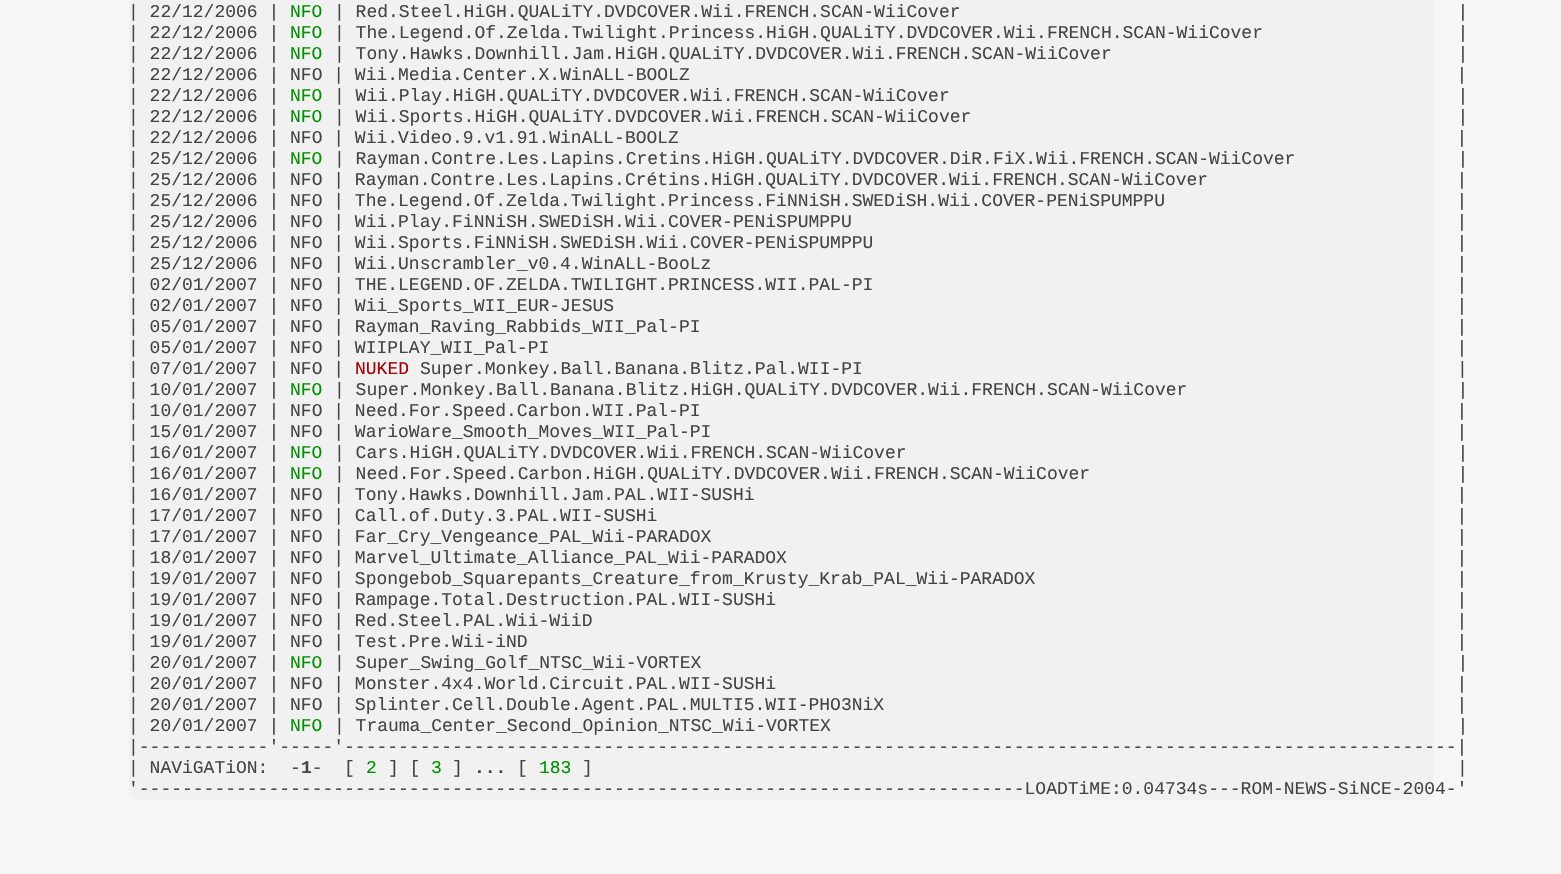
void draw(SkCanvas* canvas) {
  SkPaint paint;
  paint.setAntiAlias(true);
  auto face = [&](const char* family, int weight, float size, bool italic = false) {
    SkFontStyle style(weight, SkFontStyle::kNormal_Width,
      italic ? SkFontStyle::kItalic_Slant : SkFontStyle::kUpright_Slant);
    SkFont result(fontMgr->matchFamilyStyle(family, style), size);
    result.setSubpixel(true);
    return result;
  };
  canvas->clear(0xfff7f7f7);
  paint.setColor(0xfff1f1f1);
  canvas->drawRoundRect(SkRect::MakeXYWH(129, -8, 1305, 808), 8, 8, paint);
  auto f0 = face("Liberation Mono", 400, 18);
  paint.setColor(0xff444444);
  canvas->drawString("| 22/12/2006 |", 128, 17, f0, paint);
  paint.setColor(0xff018f00);
  canvas->drawString("NFO", 290, 17, f0, paint);
  paint.setColor(0xff444444);
  canvas->drawString("| Red.Steel.HiGH.QUALiTY.DVDCOVER.Wii.FRENCH.SCAN-WiiCover                                              |", 334, 17, f0, paint);
  canvas->drawString("| 22/12/2006 |", 128, 38, f0, paint);
  paint.setColor(0xff018f00);
  canvas->drawString("NFO", 290, 38, f0, paint);
  paint.setColor(0xff444444);
  canvas->drawString("| The.Legend.Of.Zelda.Twilight.Princess.HiGH.QUALiTY.DVDCOVER.Wii.FRENCH.SCAN-WiiCover                  |", 334, 38, f0, paint);
  canvas->drawString("| 22/12/2006 |", 128, 59, f0, paint);
  paint.setColor(0xff018f00);
  canvas->drawString("NFO", 290, 59, f0, paint);
  paint.setColor(0xff444444);
  {
    const struct { const char* s; float x, y; } items[] = {
      {"| Tony.Hawks.Downhill.Jam.HiGH.QUALiTY.DVDCOVER.Wii.FRENCH.SCAN-WiiCover                                |", 334, 59},
      {"| 22/12/2006 | NFO | Wii.Media.Center.X.WinALL-BOOLZ                                                                       |", 128, 80},
      {"| 22/12/2006 |", 128, 101},
    };
    for (auto [s, x, y] : items) {
      canvas->drawString(s, x, y, f0, paint);
    }
  }
  paint.setColor(0xff018f00);
  canvas->drawString("NFO", 290, 101, f0, paint);
  paint.setColor(0xff444444);
  canvas->drawString("| Wii.Play.HiGH.QUALiTY.DVDCOVER.Wii.FRENCH.SCAN-WiiCover                                               |", 334, 101, f0, paint);
  canvas->drawString("| 22/12/2006 |", 128, 122, f0, paint);
  paint.setColor(0xff018f00);
  canvas->drawString("NFO", 290, 122, f0, paint);
  paint.setColor(0xff444444);
  {
    const struct { const char* s; float x, y; } items[] = {
      {"| Wii.Sports.HiGH.QUALiTY.DVDCOVER.Wii.FRENCH.SCAN-WiiCover                                             |", 334, 122},
      {"| 22/12/2006 | NFO | Wii.Video.9.v1.91.WinALL-BOOLZ                                                                        |", 128, 143},
      {"| 25/12/2006 |", 128, 164},
    };
    for (auto [s, x, y] : items) {
      canvas->drawString(s, x, y, f0, paint);
    }
  }
  paint.setColor(0xff018f00);
  canvas->drawString("NFO", 290, 164, f0, paint);
  paint.setColor(0xff444444);
  {
    const struct { const char* s; float x, y; } items[] = {
      {"| Rayman.Contre.Les.Lapins.Cretins.HiGH.QUALiTY.DVDCOVER.DiR.FiX.Wii.FRENCH.SCAN-WiiCover               |", 334, 164},
      {"| 25/12/2006 | NFO | Rayman.Contre.Les.Lapins.Crétins.HiGH.QUALiTY.DVDCOVER.Wii.FRENCH.SCAN-WiiCover                       |", 128, 185},
      {"| 25/12/2006 | NFO | The.Legend.Of.Zelda.Twilight.Princess.FiNNiSH.SWEDiSH.Wii.COVER-PENiSPUMPPU                           |", 128, 206},
      {"| 25/12/2006 | NFO | Wii.Play.FiNNiSH.SWEDiSH.Wii.COVER-PENiSPUMPPU                                                        |", 128, 227},
      {"| 25/12/2006 | NFO | Wii.Sports.FiNNiSH.SWEDiSH.Wii.COVER-PENiSPUMPPU                                                      |", 128, 248},
      {"| 25/12/2006 | NFO | Wii.Unscrambler_v0.4.WinALL-BooLz                                                                     |", 128, 269},
      {"| 02/01/2007 | NFO | THE.LEGEND.OF.ZELDA.TWILIGHT.PRINCESS.WII.PAL-PI                                                      |", 128, 290},
      {"| 02/01/2007 | NFO | Wii_Sports_WII_EUR-JESUS                                                                              |", 128, 311},
      {"| 05/01/2007 | NFO | Rayman_Raving_Rabbids_WII_Pal-PI                                                                      |", 128, 332},
      {"| 05/01/2007 | NFO | WIIPLAY_WII_Pal-PI                                                                                    |", 128, 353},
      {"| 07/01/2007 | NFO |", 128, 374},
    };
    for (auto [s, x, y] : items) {
      canvas->drawString(s, x, y, f0, paint);
    }
  }
  paint.setColor(0xffa00000);
  canvas->drawString("NUKED", 355, 374, f0, paint);
  paint.setColor(0xff444444);
  canvas->drawString("Super.Monkey.Ball.Banana.Blitz.Pal.WII-PI                                                       |", 420, 374, f0, paint);
  canvas->drawString("| 10/01/2007 |", 128, 395, f0, paint);
  paint.setColor(0xff018f00);
  canvas->drawString("NFO", 290, 395, f0, paint);
  paint.setColor(0xff444444);
  {
    const struct { const char* s; float x, y; } items[] = {
      {"| Super.Monkey.Ball.Banana.Blitz.HiGH.QUALiTY.DVDCOVER.Wii.FRENCH.SCAN-WiiCover                         |", 334, 395},
      {"| 10/01/2007 | NFO | Need.For.Speed.Carbon.WII.Pal-PI                                                                      |", 128, 416},
      {"| 15/01/2007 | NFO | WarioWare_Smooth_Moves_WII_Pal-PI                                                                     |", 128, 437},
      {"| 16/01/2007 |", 128, 458},
    };
    for (auto [s, x, y] : items) {
      canvas->drawString(s, x, y, f0, paint);
    }
  }
  paint.setColor(0xff018f00);
  canvas->drawString("NFO", 290, 458, f0, paint);
  paint.setColor(0xff444444);
  canvas->drawString("| Cars.HiGH.QUALiTY.DVDCOVER.Wii.FRENCH.SCAN-WiiCover                                                   |", 334, 458, f0, paint);
  canvas->drawString("| 16/01/2007 |", 128, 479, f0, paint);
  paint.setColor(0xff018f00);
  canvas->drawString("NFO", 290, 479, f0, paint);
  paint.setColor(0xff444444);
  {
    const struct { const char* s; float x, y; } items[] = {
      {"| Need.For.Speed.Carbon.HiGH.QUALiTY.DVDCOVER.Wii.FRENCH.SCAN-WiiCover                                  |", 334, 479},
      {"| 16/01/2007 | NFO | Tony.Hawks.Downhill.Jam.PAL.WII-SUSHi                                                                 |", 128, 500},
      {"| 17/01/2007 | NFO | Call.of.Duty.3.PAL.WII-SUSHi                                                                          |", 128, 521},
      {"| 17/01/2007 | NFO | Far_Cry_Vengeance_PAL_Wii-PARADOX                                                                     |", 128, 542},
      {"| 18/01/2007 | NFO | Marvel_Ultimate_Alliance_PAL_Wii-PARADOX                                                              |", 128, 563},
      {"| 19/01/2007 | NFO | Spongebob_Squarepants_Creature_from_Krusty_Krab_PAL_Wii-PARADOX                                       |", 128, 584},
      {"| 19/01/2007 | NFO | Rampage.Total.Destruction.PAL.WII-SUSHi                                                               |", 128, 605},
      {"| 19/01/2007 | NFO | Red.Steel.PAL.Wii-WiiD                                                                                |", 128, 626},
      {"| 19/01/2007 | NFO | Test.Pre.Wii-iND                                                                                      |", 128, 647},
      {"| 20/01/2007 |", 128, 668},
    };
    for (auto [s, x, y] : items) {
      canvas->drawString(s, x, y, f0, paint);
    }
  }
  paint.setColor(0xff018f00);
  canvas->drawString("NFO", 290, 668, f0, paint);
  paint.setColor(0xff444444);
  {
    const struct { const char* s; float x, y; } items[] = {
      {"| Super_Swing_Golf_NTSC_Wii-VORTEX                                                                      |", 334, 668},
      {"| 20/01/2007 | NFO | Monster.4x4.World.Circuit.PAL.WII-SUSHi                                                               |", 128, 689},
      {"| 20/01/2007 | NFO | Splinter.Cell.Double.Agent.PAL.MULTI5.WII-PHO3NiX                                                     |", 128, 710},
      {"| 20/01/2007 |", 128, 731},
    };
    for (auto [s, x, y] : items) {
      canvas->drawString(s, x, y, f0, paint);
    }
  }
  paint.setColor(0xff018f00);
  canvas->drawString("NFO", 290, 731, f0, paint);
  paint.setColor(0xff444444);
  {
    const struct { const char* s; float x, y; } items[] = {
      {"| Trauma_Center_Second_Opinion_NTSC_Wii-VORTEX                                                          |", 334, 731},
      {"|------------'-----'-------------------------------------------------------------------------------------------------------|", 128, 752},
      {"| NAViGATiON:  - -  [", 128, 773},
    };
    for (auto [s, x, y] : items) {
      canvas->drawString(s, x, y, f0, paint);
    }
  }
  paint.setColor(0xff018f00);
  canvas->drawString("2", 366, 773, f0, paint);
  paint.setColor(0xff444444);
  canvas->drawString("] [", 388, 773, f0, paint);
  paint.setColor(0xff018f00);
  canvas->drawString("3", 431, 773, f0, paint);
  paint.setColor(0xff444444);
  canvas->drawString("]", 452, 773, f0, paint);
  canvas->drawString("[", 517, 773, f0, paint);
  paint.setColor(0xff018f00);
  canvas->drawString("183", 539, 773, f0, paint);
  paint.setColor(0xff444444);
  canvas->drawString("]                                                                                |", 582, 773, f0, paint);
  auto f1 = face("Liberation Mono", 700, 18);
  canvas->drawString("1", 301, 773, f1, paint);
  canvas->drawString("...", 474, 773, f1, paint);
  canvas->drawString("'----------------------------------------------------------------------------------LOADTiME:0.04734s---ROM-NEWS-SiNCE-2004-'", 128, 794, f0, paint);
}
